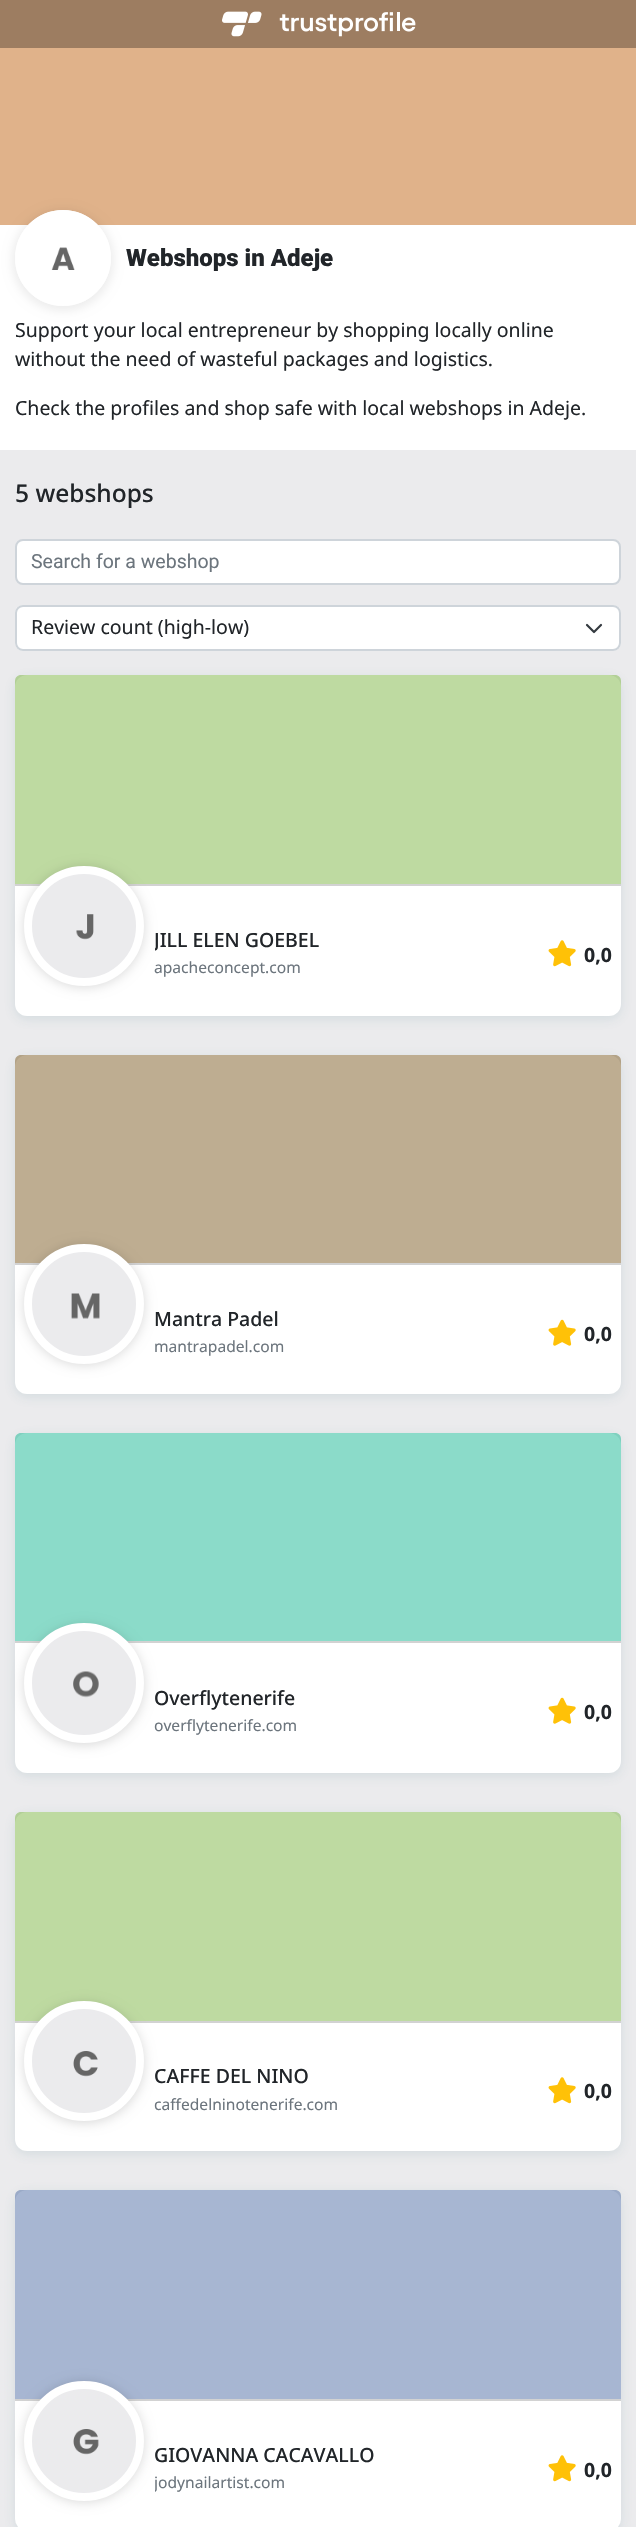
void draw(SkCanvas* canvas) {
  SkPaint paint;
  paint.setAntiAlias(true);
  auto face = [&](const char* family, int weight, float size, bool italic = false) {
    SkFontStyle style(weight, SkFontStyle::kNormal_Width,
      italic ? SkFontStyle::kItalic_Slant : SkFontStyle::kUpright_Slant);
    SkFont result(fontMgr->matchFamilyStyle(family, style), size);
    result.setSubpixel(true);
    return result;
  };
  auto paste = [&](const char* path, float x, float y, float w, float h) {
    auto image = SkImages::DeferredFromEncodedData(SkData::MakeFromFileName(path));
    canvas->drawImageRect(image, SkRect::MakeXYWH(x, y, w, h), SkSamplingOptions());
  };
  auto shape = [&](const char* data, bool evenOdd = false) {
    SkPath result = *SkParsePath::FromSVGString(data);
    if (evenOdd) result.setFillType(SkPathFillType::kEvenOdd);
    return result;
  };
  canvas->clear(0xffebebed);
  paint.setColor(0xff9d7d61);
  canvas->drawRect(SkRect::MakeXYWH(0, 0, 636, 48), paint);
  paste("img/1.png", 222, 11, 194, 26);
  paint.setColor(0xffe0b28a);
  canvas->drawRect(SkRect::MakeXYWH(0, 48, 636, 177), paint);
  paint.setColor(0xffffffff);
  canvas->drawRect(SkRect::MakeXYWH(0, 225, 636, 225), paint);
  paint.setColor(0x12000000);
  paint.setMaskFilter(SkMaskFilter::MakeBlur(kNormal_SkBlurStyle, 5));
  canvas->drawRoundRect(SkRect::MakeXYWH(12, 209, 102, 102), 51, 51, paint);
  paint.setMaskFilter(nullptr);
  paint.setColor(0xffffffff);
  canvas->drawCircle(63, 258, 48, paint);
  paste("img/2.png", 51, 247, 24, 23);
  paint.setStroke(true);
  paint.setStrokeWidth(3);
  canvas->drawCircle(63, 258, 46.5f, paint);
  paint.setStroke(false);
  canvas->drawRoundRect(SkRect::MakeXYWH(16, 540, 604, 44), 7, 7, paint);
  paint.setStroke(true);
  paint.setStrokeWidth(2);
  paint.setColor(0xffced4da);
  canvas->drawRoundRect(SkRect::MakeXYWH(16, 540, 604, 44), 7, 7, paint);
  paint.setStroke(false);
  paint.setColor(0xffffffff);
  canvas->drawRoundRect(SkRect::MakeXYWH(15, 605, 606, 46), 8, 8, paint);
  paint.setStroke(true);
  paint.setStrokeWidth(2.2f);
  paint.setStrokeCap(SkPaint::kRound_Cap);
  paint.setStrokeJoin(SkPaint::kRound_Join);
  paint.setColor(0xff343a40);
  canvas->drawPath(shape("M587 625L594 632L601 625"), paint);
  paint.setStrokeWidth(2);
  paint.setStrokeCap(SkPaint::kButt_Cap);
  paint.setStrokeJoin(SkPaint::kMiter_Join);
  paint.setColor(0xffced4da);
  canvas->drawRoundRect(SkRect::MakeXYWH(16, 606, 604, 44), 7, 7, paint);
  paint.setStroke(false);
  paint.setColor(0x264c7e8f);
  paint.setMaskFilter(SkMaskFilter::MakeBlur(kNormal_SkBlurStyle, 6));
  canvas->drawRoundRect(SkRect::MakeXYWH(15, 678, 606, 341), 12, 12, paint);
  paint.setMaskFilter(nullptr);
  paint.setColor(0xffffffff);
  canvas->drawRoundRect(SkRect::MakeXYWH(15, 675, 606, 341), 12, 12, paint);
  paint.setColor(0xffd2d2d2);
  canvas->drawRect(SkRect::MakeXYWH(15, 884, 606, 2), paint);
  paint.setColor(0x807db643);
  canvas->drawPath(shape("M21 675H615C618.5 675 621 677.5 621 681V884H15V681C15 677.5 17.5 675 21 675Z"), paint);
  paint.setColor(0x26000000);
  paint.setMaskFilter(SkMaskFilter::MakeBlur(kNormal_SkBlurStyle, 6));
  canvas->drawRoundRect(SkRect::MakeXYWH(24, 867, 120, 120), 60, 60, paint);
  paint.setMaskFilter(nullptr);
  paint.setColor(0xffebebed);
  canvas->drawCircle(84, 926, 56, paint);
  paint.setStroke(true);
  paint.setStrokeWidth(8);
  paint.setColor(0xffffffff);
  canvas->drawCircle(84, 926, 56, paint);
  paste("img/3.png", 76, 914, 18, 26);
  paste("img/4.png", 548, 940, 28, 27);
  paint.setStroke(false);
  paint.setColor(0x264c7e8f);
  paint.setMaskFilter(SkMaskFilter::MakeBlur(kNormal_SkBlurStyle, 6));
  canvas->drawRoundRect(SkRect::MakeXYWH(15, 1058, 606, 339), 12, 12, paint);
  paint.setMaskFilter(nullptr);
  paint.setColor(0xffffffff);
  canvas->drawRoundRect(SkRect::MakeXYWH(15, 1055, 606, 339), 12, 12, paint);
  paint.setColor(0xffd2d2d2);
  canvas->drawRect(SkRect::MakeXYWH(15, 1263, 606, 2), paint);
  paint.setColor(0x807e5c24);
  canvas->drawPath(shape("M21 1055H615C618.5 1055 621 1057.5 621 1061V1263H15V1061C15 1057.5 17.5 1055 21 1055Z"), paint);
  paint.setColor(0x26000000);
  paint.setMaskFilter(SkMaskFilter::MakeBlur(kNormal_SkBlurStyle, 6));
  canvas->drawRoundRect(SkRect::MakeXYWH(24, 1245, 120, 120), 60, 60, paint);
  paint.setMaskFilter(nullptr);
  paint.setColor(0xffebebed);
  canvas->drawCircle(84, 1304, 56, paint);
  paint.setStroke(true);
  paint.setColor(0xffffffff);
  canvas->drawCircle(84, 1304, 56, paint);
  paste("img/5.png", 71, 1293, 29, 26);
  paste("img/6.png", 548, 1319, 28, 27);
  paint.setStroke(false);
  paint.setColor(0x264c7e8f);
  paint.setMaskFilter(SkMaskFilter::MakeBlur(kNormal_SkBlurStyle, 6));
  canvas->drawRoundRect(SkRect::MakeXYWH(15, 1436, 606, 340), 12, 12, paint);
  paint.setMaskFilter(nullptr);
  paint.setColor(0xffffffff);
  canvas->drawRoundRect(SkRect::MakeXYWH(15, 1433, 606, 340), 12, 12, paint);
  paint.setColor(0xffd2d2d2);
  canvas->drawRect(SkRect::MakeXYWH(15, 1641, 606, 2), paint);
  paint.setColor(0x8017b793);
  canvas->drawPath(shape("M21 1433H615C618.5 1433 621 1435.5 621 1439V1641H15V1439C15 1435.5 17.5 1433 21 1433Z"), paint);
  paint.setColor(0x26000000);
  paint.setMaskFilter(SkMaskFilter::MakeBlur(kNormal_SkBlurStyle, 6));
  canvas->drawRoundRect(SkRect::MakeXYWH(24, 1625, 120, 120), 60, 60, paint);
  paint.setMaskFilter(nullptr);
  paint.setColor(0xffebebed);
  canvas->drawCircle(84, 1683, 56, paint);
  paint.setStroke(true);
  paint.setColor(0xffffffff);
  canvas->drawCircle(84, 1683, 56, paint);
  paste("img/7.png", 73, 1671, 26, 27);
  paste("img/6.png", 548, 1697, 28, 27);
  paint.setStroke(false);
  paint.setColor(0x264c7e8f);
  paint.setMaskFilter(SkMaskFilter::MakeBlur(kNormal_SkBlurStyle, 6));
  canvas->drawRoundRect(SkRect::MakeXYWH(15, 1815, 606, 339), 12, 12, paint);
  paint.setMaskFilter(nullptr);
  paint.setColor(0xffffffff);
  canvas->drawRoundRect(SkRect::MakeXYWH(15, 1812, 606, 339), 12, 12, paint);
  paint.setColor(0xffd2d2d2);
  canvas->drawRect(SkRect::MakeXYWH(15, 2021, 606, 2), paint);
  paint.setColor(0x807db643);
  canvas->drawPath(shape("M21 1812H615C618.5 1812 621 1814.5 621 1818V2021H15V1818C15 1814.5 17.5 1812 21 1812Z"), paint);
  paint.setColor(0x26000000);
  paint.setMaskFilter(SkMaskFilter::MakeBlur(kNormal_SkBlurStyle, 6));
  canvas->drawRoundRect(SkRect::MakeXYWH(24, 2003, 120, 120), 60, 60, paint);
  paint.setMaskFilter(nullptr);
  paint.setColor(0xffebebed);
  canvas->drawCircle(84, 2061, 56, paint);
  paint.setStroke(true);
  paint.setColor(0xffffffff);
  canvas->drawCircle(84, 2061, 56, paint);
  paste("img/8.png", 73, 2051, 25, 26);
  paste("img/4.png", 548, 2077, 28, 27);
  paint.setStroke(false);
  paint.setColor(0x264c7e8f);
  paint.setMaskFilter(SkMaskFilter::MakeBlur(kNormal_SkBlurStyle, 6));
  canvas->drawRoundRect(SkRect::MakeXYWH(15, 2193, 606, 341), 12, 12, paint);
  paint.setMaskFilter(nullptr);
  paint.setColor(0xffffffff);
  canvas->drawRoundRect(SkRect::MakeXYWH(15, 2190, 606, 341), 12, 12, paint);
  paint.setColor(0xffd2d2d2);
  canvas->drawRect(SkRect::MakeXYWH(15, 2399, 606, 2), paint);
  paint.setColor(0x804f6ea5);
  canvas->drawPath(shape("M21 2190H615C618.5 2190 621 2192.5 621 2196V2399H15V2196C15 2192.5 17.5 2190 21 2190Z"), paint);
  paint.setColor(0x26000000);
  paint.setMaskFilter(SkMaskFilter::MakeBlur(kNormal_SkBlurStyle, 6));
  canvas->drawRoundRect(SkRect::MakeXYWH(24, 2382, 120, 120), 60, 60, paint);
  paint.setMaskFilter(nullptr);
  paint.setColor(0xffebebed);
  canvas->drawCircle(84, 2441, 56, paint);
  paint.setStroke(true);
  paint.setColor(0xffffffff);
  canvas->drawCircle(84, 2441, 56, paint);
  paste("img/9.png", 73, 2429, 26, 26);
  paste("img/4.png", 548, 2455, 28, 27);
  auto f0 = face("Roboto", 900, 24);
  paint.setStroke(false);
  paint.setColor(0xff212529);
  canvas->drawString("Webshops in Adeje", 126, 266, f0, paint);
  auto f1 = face("Noto Sans", 400, 19.5f);
  {
    const struct { const char* s; float x, y; } items[] = {
      {"Support your local entrepreneur by shopping locally online", 15, 337},
      {"without the need of wasteful packages and logistics.", 15, 366},
      {"Check the profiles and shop safe with local webshops in Adeje.", 15, 415},
    };
    for (auto [s, x, y] : items) {
      canvas->drawString(s, x, y, f1, paint);
    }
  }
  auto f2 = face("Noto Sans", 500, 24.5f);
  canvas->drawString("5 webshops", 15, 502, f2, paint);
  auto f3 = face("Roboto", 400, 19.5f);
  paint.setColor(0xff6c757d);
  canvas->drawString("Search for a webshop", 31, 568, f3, paint);
  paint.setColor(0xff212529);
  canvas->drawString("Review count (high-low)", 31, 634, f1, paint);
  canvas->save();
  canvas->clipRect(SkRect::MakeXYWH(155, 929, 391, 24));
  auto f4 = face("Noto Sans", 500, 19.5f);
  canvas->drawString("JILL ELEN GOEBEL", 154, 947, f4, paint);
  canvas->restore();
  auto f5 = face("Noto Sans", 400, 15.6f);
  paint.setColor(0xff6c757d);
  canvas->drawString("apacheconcept.com", 154, 973, f5, paint);
  auto f6 = face("Noto Sans", 700, 19.5f);
  paint.setColor(0xff212529);
  canvas->drawString("0,0", 584, 962, f6, paint);
  canvas->drawString("Mantra Padel", 154, 1326, f4, paint);
  paint.setColor(0xff6c757d);
  canvas->drawString("mantrapadel.com", 154, 1352, f5, paint);
  paint.setColor(0xff212529);
  canvas->drawString("0,0", 584, 1341, f6, paint);
  canvas->drawString("Overflytenerife", 154, 1705, f4, paint);
  paint.setColor(0xff6c757d);
  canvas->drawString("overflytenerife.com", 154, 1731, f5, paint);
  paint.setColor(0xff212529);
  canvas->drawString("0,0", 584, 1719, f6, paint);
  canvas->drawString("CAFFE DEL NINO", 154, 2083, f4, paint);
  paint.setColor(0xff6c757d);
  canvas->drawString("caffedelninotenerife.com", 154, 2110, f5, paint);
  paint.setColor(0xff212529);
  canvas->drawString("0,0", 584, 2098, f6, paint);
  canvas->drawString("GIOVANNA CACAVALLO", 154, 2462, f4, paint);
  canvas->save();
  canvas->clipRect(SkRect::MakeXYWH(155, 2444, 391, 52));
  paint.setColor(0xff6c757d);
  canvas->drawString("jodynailartist.com", 154, 2488, f5, paint);
  canvas->restore();
  paint.setColor(0xff212529);
  canvas->drawString("0,0", 584, 2477, f6, paint);
}
